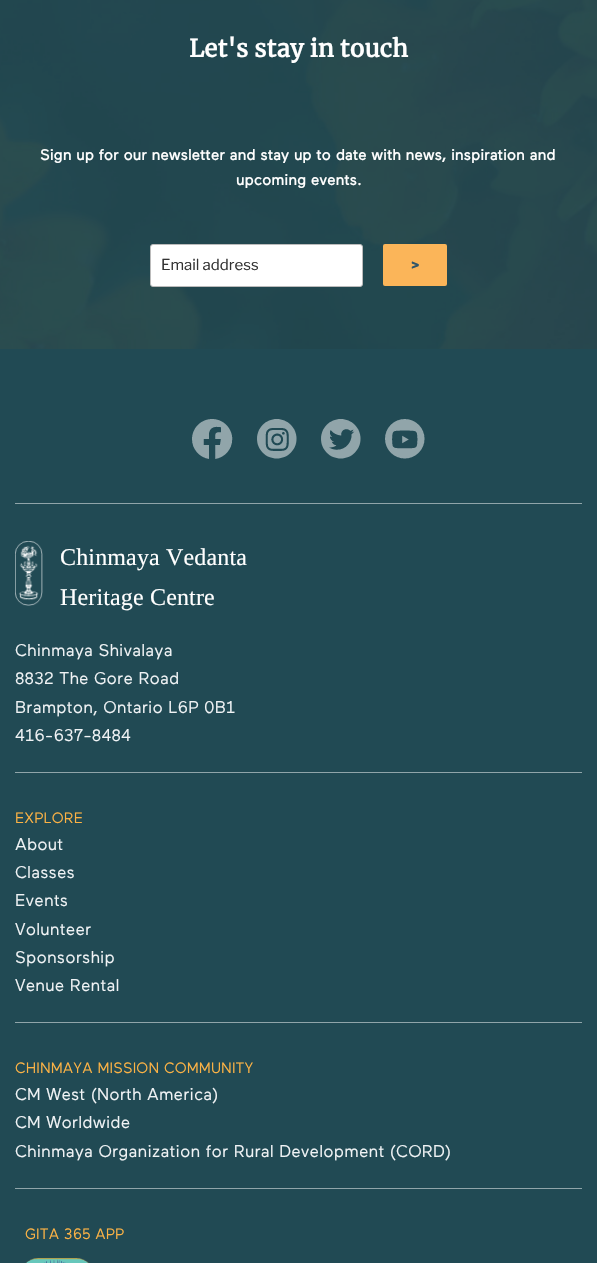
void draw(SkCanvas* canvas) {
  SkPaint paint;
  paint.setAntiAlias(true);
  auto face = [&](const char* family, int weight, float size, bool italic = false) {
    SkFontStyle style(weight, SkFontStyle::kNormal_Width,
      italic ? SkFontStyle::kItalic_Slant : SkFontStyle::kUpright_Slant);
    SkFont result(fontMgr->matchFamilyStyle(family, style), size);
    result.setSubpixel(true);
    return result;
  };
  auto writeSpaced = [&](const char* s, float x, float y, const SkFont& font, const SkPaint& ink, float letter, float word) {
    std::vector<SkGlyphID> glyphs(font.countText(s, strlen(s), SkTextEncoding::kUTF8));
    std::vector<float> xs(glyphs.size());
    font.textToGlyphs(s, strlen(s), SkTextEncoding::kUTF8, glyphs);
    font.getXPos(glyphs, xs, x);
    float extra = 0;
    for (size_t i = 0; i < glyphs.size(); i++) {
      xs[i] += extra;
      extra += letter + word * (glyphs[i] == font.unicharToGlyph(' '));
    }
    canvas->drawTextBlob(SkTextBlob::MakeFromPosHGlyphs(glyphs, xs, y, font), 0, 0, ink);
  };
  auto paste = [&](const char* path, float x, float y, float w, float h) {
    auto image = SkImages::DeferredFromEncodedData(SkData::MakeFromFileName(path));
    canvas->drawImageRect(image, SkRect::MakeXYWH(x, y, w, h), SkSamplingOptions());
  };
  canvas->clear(0xffffffff);
  paste("img/1.png", 0, 0, 597, 349);
  paint.setColor(0xffffffff);
  canvas->drawRoundRect(SkRect::MakeXYWH(150.5f, 244.5f, 212, 42), 2.5f, 2.5f, paint);
  paint.setStroke(true);
  paint.setStrokeWidth(1);
  paint.setColor(0xffbbbbbb);
  canvas->drawRoundRect(SkRect::MakeXYWH(150.5f, 244.5f, 212, 42), 2.5f, 2.5f, paint);
  paint.setStroke(false);
  paint.setColor(0xfffbb559);
  canvas->drawRoundRect(SkRect::MakeXYWH(383, 244, 64, 42), 2, 2, paint);
  paint.setColor(0xff214a54);
  canvas->drawRect(SkRect::MakeXYWH(0, 349, 597, 914), paint);
  paste("img/2.png", 192, 419, 41, 40);
  paste("img/3.png", 257, 419, 40, 40);
  paste("img/4.png", 321, 419, 40, 40);
  paste("img/5.png", 385, 419, 40, 40);
  paint.setColor(0xff90a5aa);
  canvas->drawRect(SkRect::MakeXYWH(15, 503, 567, 1), paint);
  paste("img/6.png", 15, 541, 28, 65);
  {
    const struct { float x, y, w, h; SkColor color; } items[] = {
      {15, 772, 567, 1, 0xff90a5aa},
      {15, 1022, 567, 1, 0xff90a5aa},
      {15, 1188, 567, 1, 0xff90a5aa},
    };
    for (auto [x, y, w, h, color] : items) {
      paint.setColor(color);
      canvas->drawRect(SkRect::MakeXYWH(x, y, w, h), paint);
    }
  }
  paste("img/7.png", 25, 1258, 64, 5);
  auto f0 = face("Merriweather", 700, 24);
  paint.setColor(0xffffffff);
  writeSpaced("Let's stay in touch", 189, 57, f0, paint, 0.15f, 0);
  auto f1 = face("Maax", 700, 15);
  writeSpaced("Sign up for our newsletter and stay up to date with news, inspiration and", 40, 160, f1, paint, 0.15f, 0);
  writeSpaced("upcoming events.", 236, 185, f1, paint, 0.15f, 0);
  auto f2 = face("Libre Franklin", 400, 15);
  paint.setColor(0xff333333);
  canvas->drawString("Email address", 161, 270, f2, paint);
  auto f3 = face("Libre Franklin", 800, 14);
  paint.setColor(0xff30566a);
  canvas->drawString(">", 411, 270, f3, paint);
  auto f4 = face("Liberation Serif", 400, 24);
  paint.setColor(0xffffffff);
  writeSpaced("Chinmaya Vedanta", 60, 565, f4, paint, 0.15f, 0);
  writeSpaced("Heritage Centre", 60, 605, f4, paint, 0.15f, 0);
  auto f5 = face("Maax", 400, 17);
  paint.setColor(0xfff0f3f5);
  {
    const struct { const char* s; float x, y; } items[] = {
      {"Chinmaya Shivalaya", 15, 656},
      {"8832 The Gore Road", 15, 684},
      {"Brampton, Ontario L6P 0B1", 15, 713},
      {"416-637-8484", 15, 741},
    };
    for (auto [s, x, y] : items) {
      writeSpaced(s, x, y, f5, paint, 0.15f, 0);
    }
  }
  auto f6 = face("Maax", 400, 15);
  paint.setColor(0xfffbb245);
  writeSpaced("EXPLORE", 15, 823, f6, paint, 0.15f, 0);
  paint.setColor(0xfff0f3f5);
  {
    const struct { const char* s; float x, y; } items[] = {
      {"About", 15, 850},
      {"Classes", 15, 878},
      {"Events", 15, 906},
      {"Volunteer", 15, 935},
      {"Sponsorship", 15, 963},
      {"Venue Rental", 15, 991},
    };
    for (auto [s, x, y] : items) {
      writeSpaced(s, x, y, f5, paint, 0.15f, 0);
    }
  }
  paint.setColor(0xfffbb245);
  writeSpaced("CHINMAYA MISSION COMMUNITY", 15, 1073, f6, paint, 0.15f, 0);
  paint.setColor(0xfff0f3f5);
  {
    const struct { const char* s; float x, y; } items[] = {
      {"CM West (North America)", 15, 1100},
      {"CM Worldwide", 15, 1128},
      {"Chinmaya Organization for Rural Development (CORD)", 15, 1157},
    };
    for (auto [s, x, y] : items) {
      writeSpaced(s, x, y, f5, paint, 0.15f, 0);
    }
  }
  paint.setColor(0xfffbb245);
  writeSpaced("GITA 365 APP", 25, 1239, f6, paint, 0.15f, 0);
}
